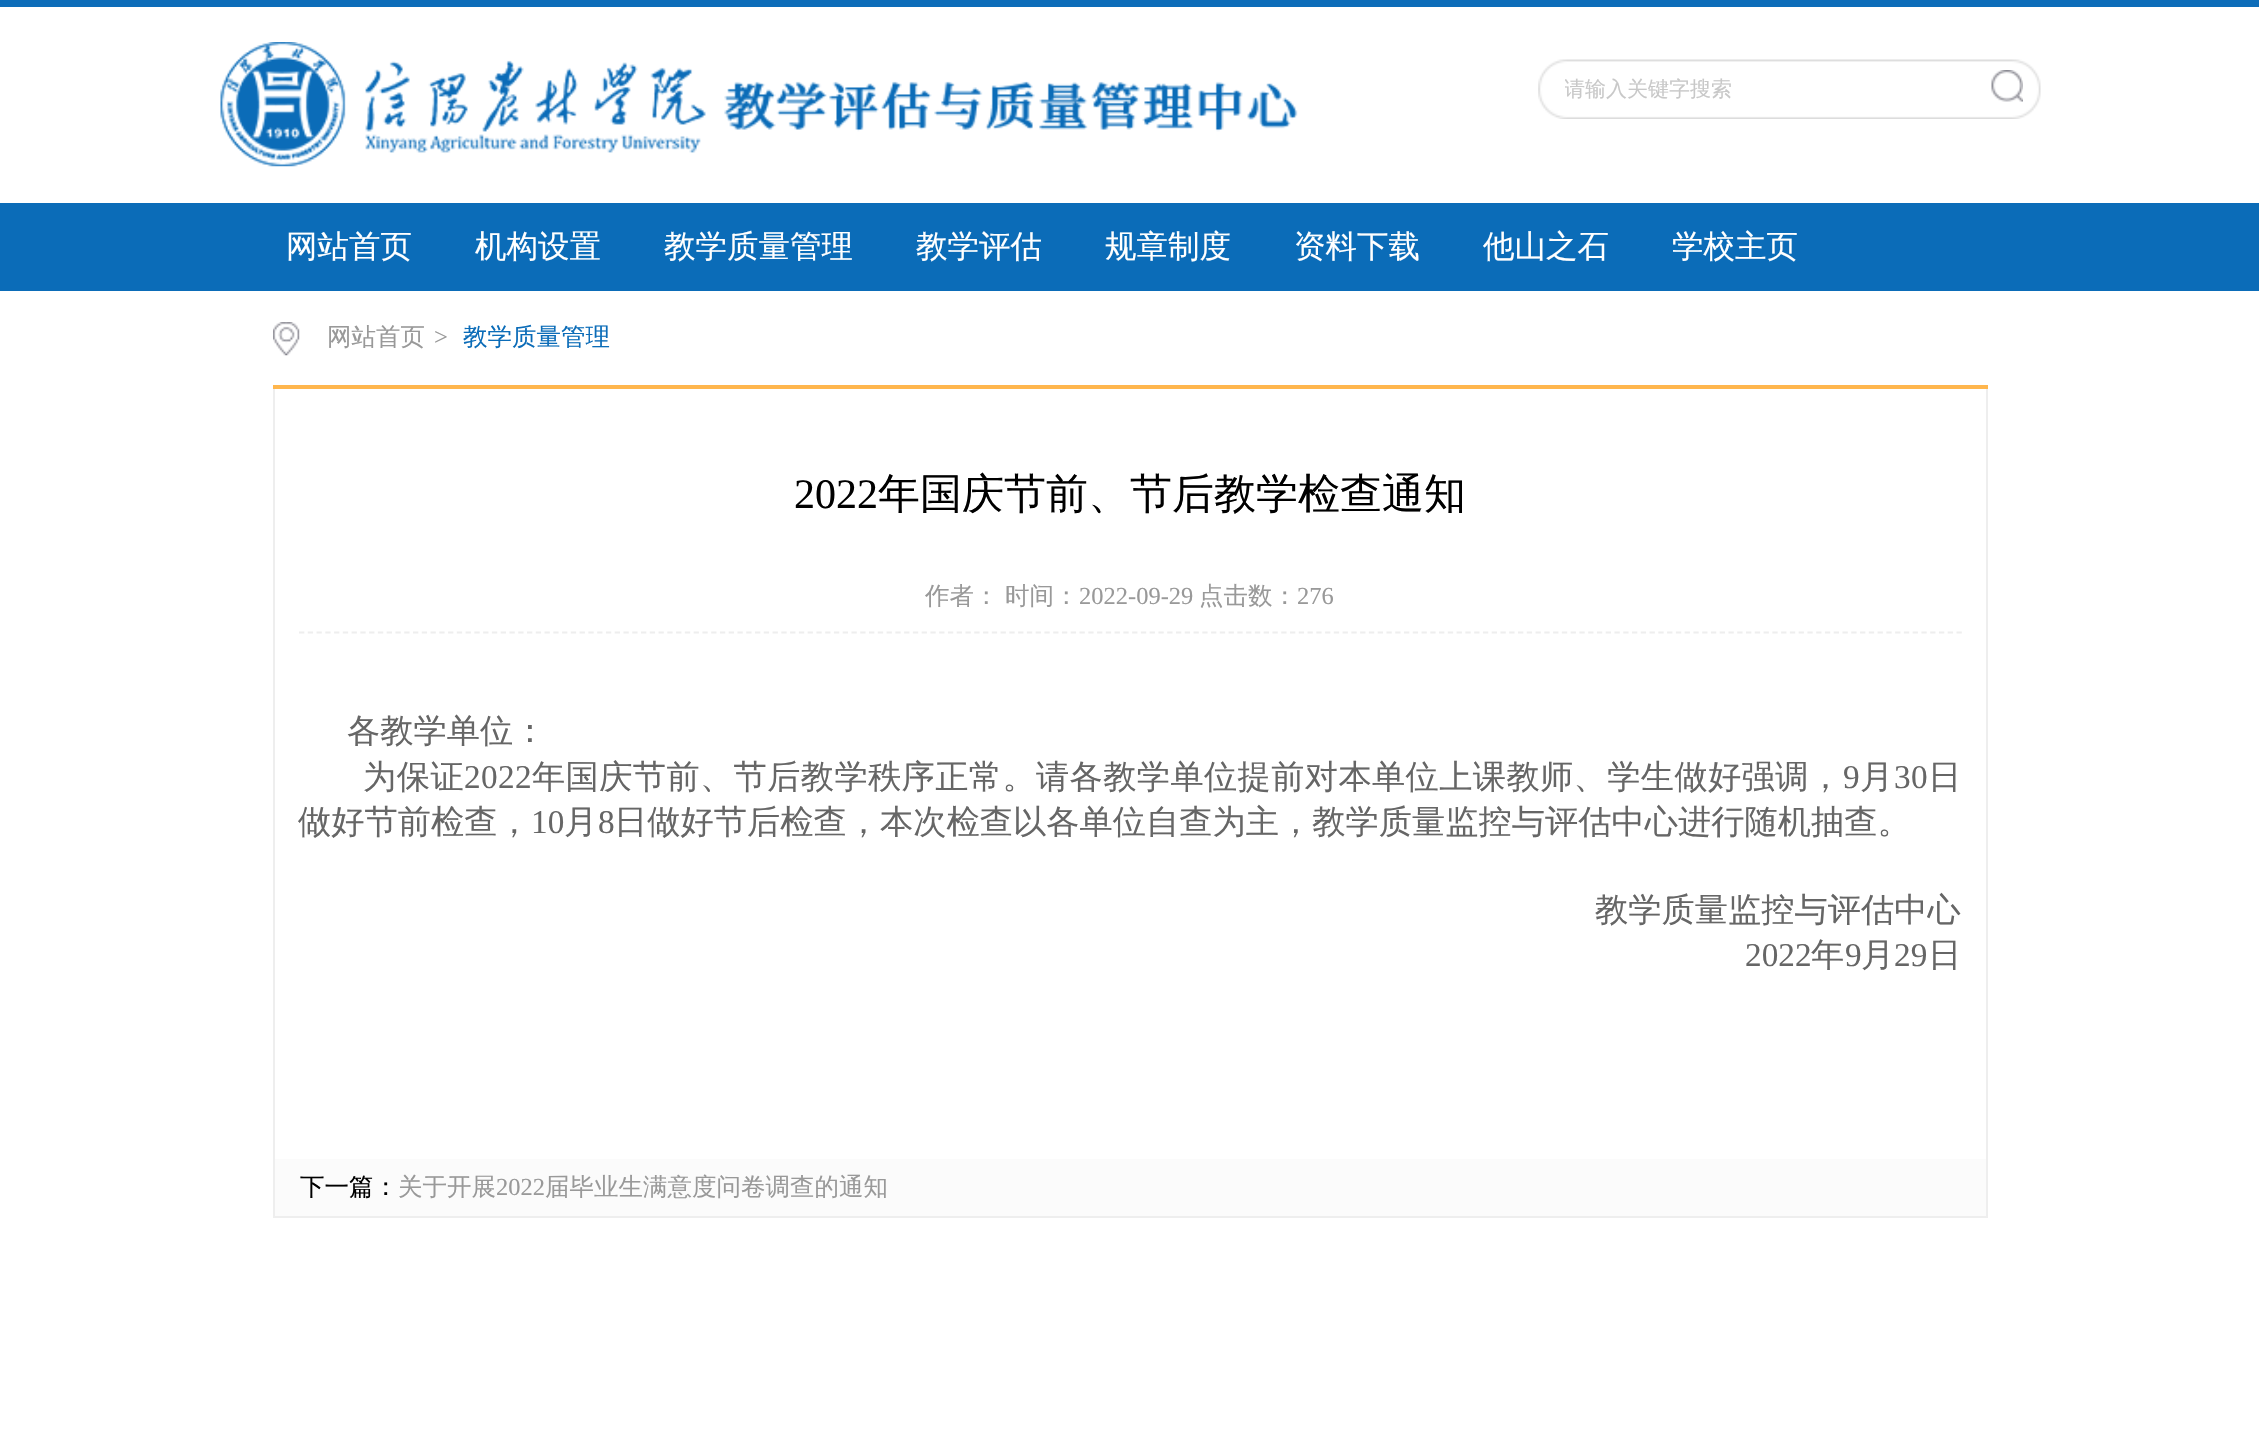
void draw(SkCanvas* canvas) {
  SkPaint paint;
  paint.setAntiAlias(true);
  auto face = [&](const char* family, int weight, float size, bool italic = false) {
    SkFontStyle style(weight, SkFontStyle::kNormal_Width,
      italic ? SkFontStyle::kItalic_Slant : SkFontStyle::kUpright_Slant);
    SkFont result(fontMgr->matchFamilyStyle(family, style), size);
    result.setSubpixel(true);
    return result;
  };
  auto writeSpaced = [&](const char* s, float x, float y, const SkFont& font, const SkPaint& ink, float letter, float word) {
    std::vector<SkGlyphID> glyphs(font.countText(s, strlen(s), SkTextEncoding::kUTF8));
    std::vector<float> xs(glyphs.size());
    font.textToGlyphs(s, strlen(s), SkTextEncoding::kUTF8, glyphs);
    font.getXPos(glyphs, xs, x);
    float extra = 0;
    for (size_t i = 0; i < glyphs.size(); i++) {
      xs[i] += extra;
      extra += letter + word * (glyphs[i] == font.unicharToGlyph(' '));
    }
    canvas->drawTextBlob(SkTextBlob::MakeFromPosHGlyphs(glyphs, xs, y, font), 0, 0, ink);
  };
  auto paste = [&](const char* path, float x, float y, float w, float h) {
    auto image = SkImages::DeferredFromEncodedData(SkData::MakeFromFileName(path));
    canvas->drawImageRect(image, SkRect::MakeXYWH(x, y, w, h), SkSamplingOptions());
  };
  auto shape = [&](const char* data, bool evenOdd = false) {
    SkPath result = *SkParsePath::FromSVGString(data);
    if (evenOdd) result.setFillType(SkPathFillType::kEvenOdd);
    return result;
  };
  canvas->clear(0xffffffff);
  paint.setColor(0xff0d6db9);
  canvas->drawRect(SkRect::MakeXYWH(0, 0, 2259, 7), paint);
  paste("img/1.png", 220, 42, 1078, 125);
  paste("img/2.png", 1538, 59, 503, 60);
  paste("img/3.png", 1991, 70, 32, 32);
  paint.setColor(0xff0b6cb8);
  canvas->drawRect(SkRect::MakeXYWH(0, 203, 2259, 88), paint);
  paint.setColor(0xffffb64d);
  canvas->drawRect(SkRect::MakeXYWH(273, 385, 1715, 4), paint);
  paste("img/4.png", 273, 322, 27, 34);
  {
    const struct { float x, y, w, h; SkColor color; } items[] = {
      {1986, 389, 2, 829, 0xffeeeeee},
      {273, 1216, 1715, 2, 0xffeeeeee},
      {273, 389, 2, 829, 0xffeeeeee},
    };
    for (auto [x, y, w, h, color] : items) {
      paint.setColor(color);
      canvas->drawRect(SkRect::MakeXYWH(x, y, w, h), paint);
    }
  }
  paint.setStroke(true);
  paint.setStrokeWidth(1.8f);
  paint.setPathEffect(SkDashPathEffect::Make({{5.25f, 3.52f}}, 0));
  canvas->drawPath(shape("M299 632.5H1962"), paint);
  paint.setPathEffect(nullptr);
  paint.setStroke(false);
  paint.setColor(0xfffbfbfb);
  canvas->drawRect(SkRect::MakeXYWH(275, 1159, 1711, 57), paint);
  canvas->save();
  canvas->clipRect(SkRect::MakeXYWH(1565, 63, 341, 53));
  auto f0 = face("WenQuanYi Zen Hei", 500, 21);
  paint.setColor(0xffc8c8c8);
  canvas->drawString("请输入关键字搜索", 1564, 96, f0, paint);
  canvas->restore();
  auto f1 = face("WenQuanYi Zen Hei", 500, 31.5f);
  paint.setColor(0xffffffff);
  {
    const struct { const char* s; float x, y; } items[] = {
      {"网站首页", 286, 257},
      {"机构设置", 475, 257},
      {"教学质量管理", 664, 257},
      {"教学评估", 916, 257},
      {"规章制度", 1105, 257},
      {"资料下载", 1294, 257},
      {"他山之石", 1483, 257},
      {"学校主页", 1672, 257},
    };
    for (auto [s, x, y] : items) {
      canvas->drawString(s, x, y, f1, paint);
    }
  }
  auto f2 = face("WenQuanYi Zen Hei", 500, 24.5f);
  paint.setColor(0xff999999);
  canvas->drawString("网站首页", 327, 345, f2, paint);
  auto f3 = face("Liberation Serif", 400, 24.5f);
  canvas->drawString(">", 434, 345, f3, paint);
  paint.setColor(0xff0b6cb8);
  canvas->drawString("教学质量管理", 463, 345, f2, paint);
  auto f4 = face("Liberation Serif", 400, 42);
  paint.setColor(0xff000000);
  canvas->drawString("2022", 794, 508, f4, paint);
  auto f5 = face("WenQuanYi Zen Hei", 500, 42);
  canvas->drawString("年国庆节前、节后教学检查通知", 878, 508, f5, paint);
  paint.setColor(0xff999999);
  canvas->drawString("作者：", 925, 604, f2, paint);
  canvas->drawString("时间：", 1005, 604, f2, paint);
  canvas->drawString("2022-09-29", 1079, 604, f3, paint);
  canvas->drawString("点击数：", 1199, 604, f2, paint);
  canvas->drawString("276", 1297, 604, f3, paint);
  auto f6 = face("WenQuanYi Zen Hei", 500, 33.25f);
  paint.setColor(0xff666666);
  canvas->drawString("各教学单位：", 347, 742, f6, paint);
  writeSpaced("为保证", 363, 788, f6, paint, 0.5f, 0);
  auto f7 = face("Liberation Serif", 400, 33.25f);
  writeSpaced("2022", 464, 788, f7, paint, 0.35f, 0);
  writeSpaced("年国庆节前、节后教学秩序正常。请各教学单位提前对本单位上课教师、学生做好强调，", 532, 788, f6, paint, 0.35f, 0);
  writeSpaced("9", 1843, 788, f7, paint, 0.35f, 0);
  writeSpaced("月", 1860, 788, f6, paint, 0.35f, 0);
  writeSpaced("30", 1894, 788, f7, paint, 0.35f, 0);
  writeSpaced("日", 1928, 788, f6, paint, 0.35f, 0);
  canvas->drawString("做好节前检查，", 298, 833, f6, paint);
  canvas->drawString("10", 531, 833, f7, paint);
  canvas->drawString("月", 564, 833, f6, paint);
  canvas->drawString("8", 598, 833, f7, paint);
  canvas->drawString("日做好节后检查，本次检查以各单位自查为主，教学质量监控与评估中心进行随机抽查。", 614, 833, f6, paint);
  canvas->drawString("教学质量监控与评估中心", 1595, 921, f6, paint);
  canvas->drawString("2022", 1745, 966, f7, paint);
  canvas->drawString("年", 1811, 966, f6, paint);
  canvas->drawString("9", 1845, 966, f7, paint);
  canvas->drawString("月", 1861, 966, f6, paint);
  canvas->drawString("29", 1894, 966, f7, paint);
  canvas->drawString("日", 1928, 966, f6, paint);
  paint.setColor(0xff000000);
  canvas->drawString("下一篇：", 300, 1195, f2, paint);
  paint.setColor(0xff999999);
  canvas->drawString("关于开展", 398, 1195, f2, paint);
  canvas->drawString("2022", 496, 1195, f3, paint);
  canvas->drawString("届毕业生满意度问卷调查的通知", 545, 1195, f2, paint);
}
